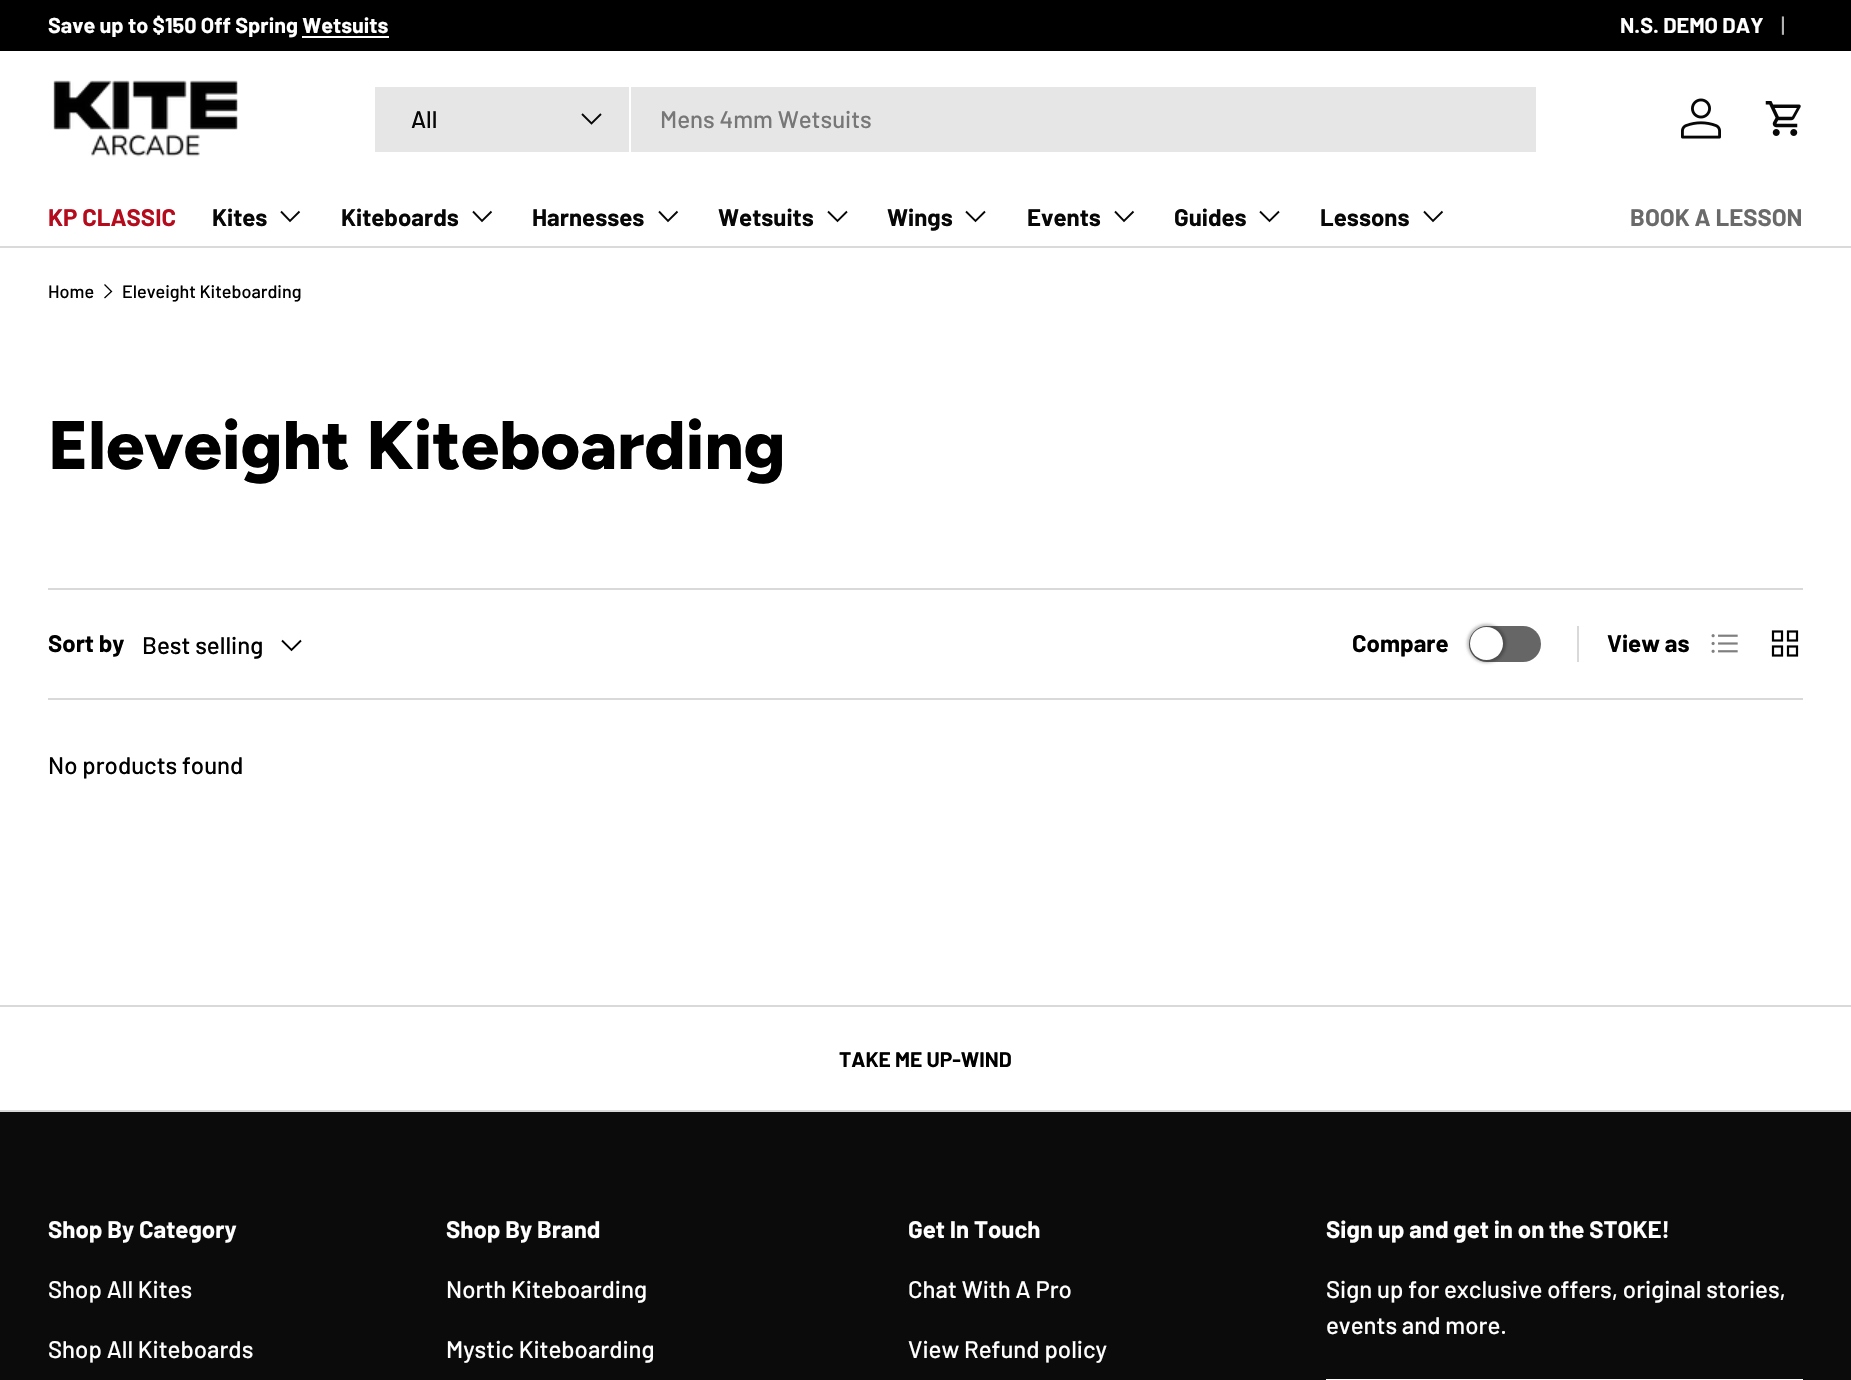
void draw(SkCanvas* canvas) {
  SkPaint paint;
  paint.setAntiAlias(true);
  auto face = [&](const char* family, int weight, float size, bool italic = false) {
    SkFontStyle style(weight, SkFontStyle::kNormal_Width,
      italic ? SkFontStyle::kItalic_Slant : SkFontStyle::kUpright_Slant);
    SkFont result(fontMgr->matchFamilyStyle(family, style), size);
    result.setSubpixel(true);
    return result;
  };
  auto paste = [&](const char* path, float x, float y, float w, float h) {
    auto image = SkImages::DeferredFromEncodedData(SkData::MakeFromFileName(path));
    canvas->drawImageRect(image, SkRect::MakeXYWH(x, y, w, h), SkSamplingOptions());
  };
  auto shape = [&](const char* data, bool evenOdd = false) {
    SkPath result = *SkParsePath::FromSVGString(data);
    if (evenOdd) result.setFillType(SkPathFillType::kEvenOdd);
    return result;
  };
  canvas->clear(0xffffffff);
  {
    const struct { float x, y, w, h; SkColor color; } items[] = {
      {0, 0, 1851, 51, 0xff000000},
      {302, 36, 87, 2, 0xffffffff},
      {0, 246, 1851, 2, 0xffdadada},
    };
    for (auto [x, y, w, h, color] : items) {
      paint.setColor(color);
      canvas->drawRect(SkRect::MakeXYWH(x, y, w, h), paint);
    }
  }
  paste("img/1.png", 53, 80, 185, 77);
  paint.setColor(0xffe6e6e6);
  canvas->drawRect(SkRect::MakeXYWH(375, 87, 1161, 65), paint);
  paint.setColor(0xffffffff);
  canvas->drawRect(SkRect::MakeXYWH(629, 87, 2, 65), paint);
  paint.setStroke(true);
  paint.setStrokeWidth(1.9f);
  paint.setColor(0xff070707);
  canvas->drawPath(shape("M601 114L591.5 123.5L582 114"), paint);
  paste("img/2.png", 1681, 98, 40, 41);
  paste("img/3.png", 1765, 101, 36, 35);
  canvas->drawPath(shape("M299.5 211.5L290 221L281 211.5"), paint);
  canvas->drawPath(shape("M491.5 211.5L482 221L473 211.5"), paint);
  canvas->drawPath(shape("M677.5 211.5L668 221L659 211.5"), paint);
  canvas->drawPath(shape("M847 211.5L837.5 221L828 211.5"), paint);
  canvas->drawPath(shape("M985 211.5L975.5 221L966 211.5"), paint);
  canvas->drawPath(shape("M1133.5 211.5L1124 221L1115 211.5"), paint);
  canvas->drawPath(shape("M1279 211.5L1269.5 221L1260 211.5"), paint);
  canvas->drawPath(shape("M1442.5 211.5L1433 221L1424 211.5"), paint);
  paint.setStrokeWidth(1.3f);
  paint.setColor(0xff000000);
  canvas->drawPath(shape("M104.5 284.5L111.5 291.5L104.5 298"), paint);
  paint.setStroke(false);
  paint.setColor(0xffd9d9d9);
  canvas->drawRect(SkRect::MakeXYWH(48, 588, 1755, 2), paint);
  canvas->drawRect(SkRect::MakeXYWH(48, 698, 1755, 2), paint);
  paint.setStroke(true);
  paint.setStrokeWidth(1.9f);
  paint.setColor(0xff000000);
  canvas->drawPath(shape("M301 640.5L291.5 650L282 640.5"), paint);
  paint.setStroke(false);
  paint.setColor(0xff666666);
  canvas->drawRoundRect(SkRect::MakeXYWH(1469, 626, 72, 36), 18, 18, paint);
  paint.setColor(0x40000000);
  paint.setMaskFilter(SkMaskFilter::MakeBlur(kNormal_SkBlurStyle, 1.5f));
  canvas->drawRoundRect(SkRect::MakeXYWH(1467, 624, 39, 39), 19.5f, 19.5f, paint);
  paint.setMaskFilter(nullptr);
  paint.setColor(0xffffffff);
  canvas->drawCircle(1486.5f, 643.5f, 16.5f, paint);
  paint.setColor(0xffd9d9d9);
  canvas->drawRect(SkRect::MakeXYWH(1577, 626, 2, 36), paint);
  paste("img/4.png", 1711, 634, 27, 19);
  paste("img/5.png", 1771, 630, 28, 27);
  {
    const struct { float x, y, w, h; SkColor color; } items[] = {
      {0, 1005, 1851, 2, 0xffd9d9d9},
      {0, 1110, 1851, 2, 0xffd9d9d9},
      {0, 1112, 1851, 268, 0xff0b0b0b},
      {1326, 1379, 477, 1, 0xffffffff},
    };
    for (auto [x, y, w, h, color] : items) {
      paint.setColor(color);
      canvas->drawRect(SkRect::MakeXYWH(x, y, w, h), paint);
    }
  }
  auto f0 = face("Barlow", 700, 21.6f);
  canvas->drawString("Save up to $150 Off Spring Wetsuits", 48, 33, f0, paint);
  canvas->drawString("N.S. DEMO DAY", 1620, 33, f0, paint);
  auto f1 = face("Barlow", 500, 21.6f);
  paint.setColor(0xffb3b3b3);
  canvas->drawString("|", 1781, 33, f1, paint);
  auto f2 = face("Barlow", 500, 24);
  paint.setColor(0xff070707);
  canvas->drawString("All", 411, 128, f2, paint);
  paint.setColor(0xff777777);
  canvas->drawString("Mens 4mm Wetsuits", 660, 128, f2, paint);
  auto f3 = face("Barlow", 700, 24);
  paint.setColor(0xffb40c1c);
  canvas->drawString("KP CLASSIC", 48, 226, f3, paint);
  paint.setColor(0xff070707);
  {
    const struct { const char* s; float x, y; } items[] = {
      {"Kites", 212, 226},
      {"Kiteboards", 341, 226},
      {"Harnesses", 532, 226},
      {"Wetsuits", 718, 226},
      {"Wings", 887, 226},
      {"Events", 1027, 226},
      {"Guides", 1174, 226},
      {"Lessons", 1320, 226},
    };
    for (auto [s, x, y] : items) {
      canvas->drawString(s, x, y, f3, paint);
    }
  }
  paint.setColor(0xff6a6a6a);
  canvas->drawString("BOOK A LESSON", 1630, 226, f3, paint);
  auto f4 = face("Barlow", 500, 18);
  paint.setColor(0xff000000);
  canvas->drawString("Home", 48, 298, f4, paint);
  canvas->drawString("Eleveight Kiteboarding", 122, 298, f4, paint);
  auto f5 = face("Figtree", 800, 68.5f);
  canvas->drawString("Eleveight Kiteboarding", 48, 469, f5, paint);
  canvas->drawString("Sort by", 48, 652, f3, paint);
  canvas->drawString("Best selling", 142, 654, f2, paint);
  canvas->drawString("Compare", 1352, 652, f3, paint);
  canvas->drawString("View as", 1607, 652, f3, paint);
  canvas->drawString("No products found", 48, 774, f2, paint);
  auto f6 = face("Barlow", 700, 21);
  canvas->drawString("TAKE ME UP-WIND", 839, 1067, f6, paint);
  paint.setColor(0xffffffff);
  canvas->drawString("Shop By Category", 48, 1238, f3, paint);
  canvas->drawString("Shop All Kites", 48, 1298, f2, paint);
  canvas->drawString("Shop All Kiteboards", 48, 1358, f2, paint);
  canvas->drawString("Shop By Brand", 446, 1238, f3, paint);
  canvas->drawString("North Kiteboarding", 446, 1298, f2, paint);
  canvas->drawString("Mystic Kiteboarding", 446, 1358, f2, paint);
  canvas->drawString("Get In Touch", 908, 1238, f3, paint);
  canvas->drawString("Chat With A Pro", 908, 1298, f2, paint);
  canvas->drawString("View Refund policy", 908, 1358, f2, paint);
  canvas->drawString("Sign up and get in on the STOKE!", 1326, 1238, f3, paint);
  canvas->drawString("Sign up for exclusive offers, original stories,", 1326, 1298, f2, paint);
  canvas->drawString("events and more.", 1326, 1334, f2, paint);
}
